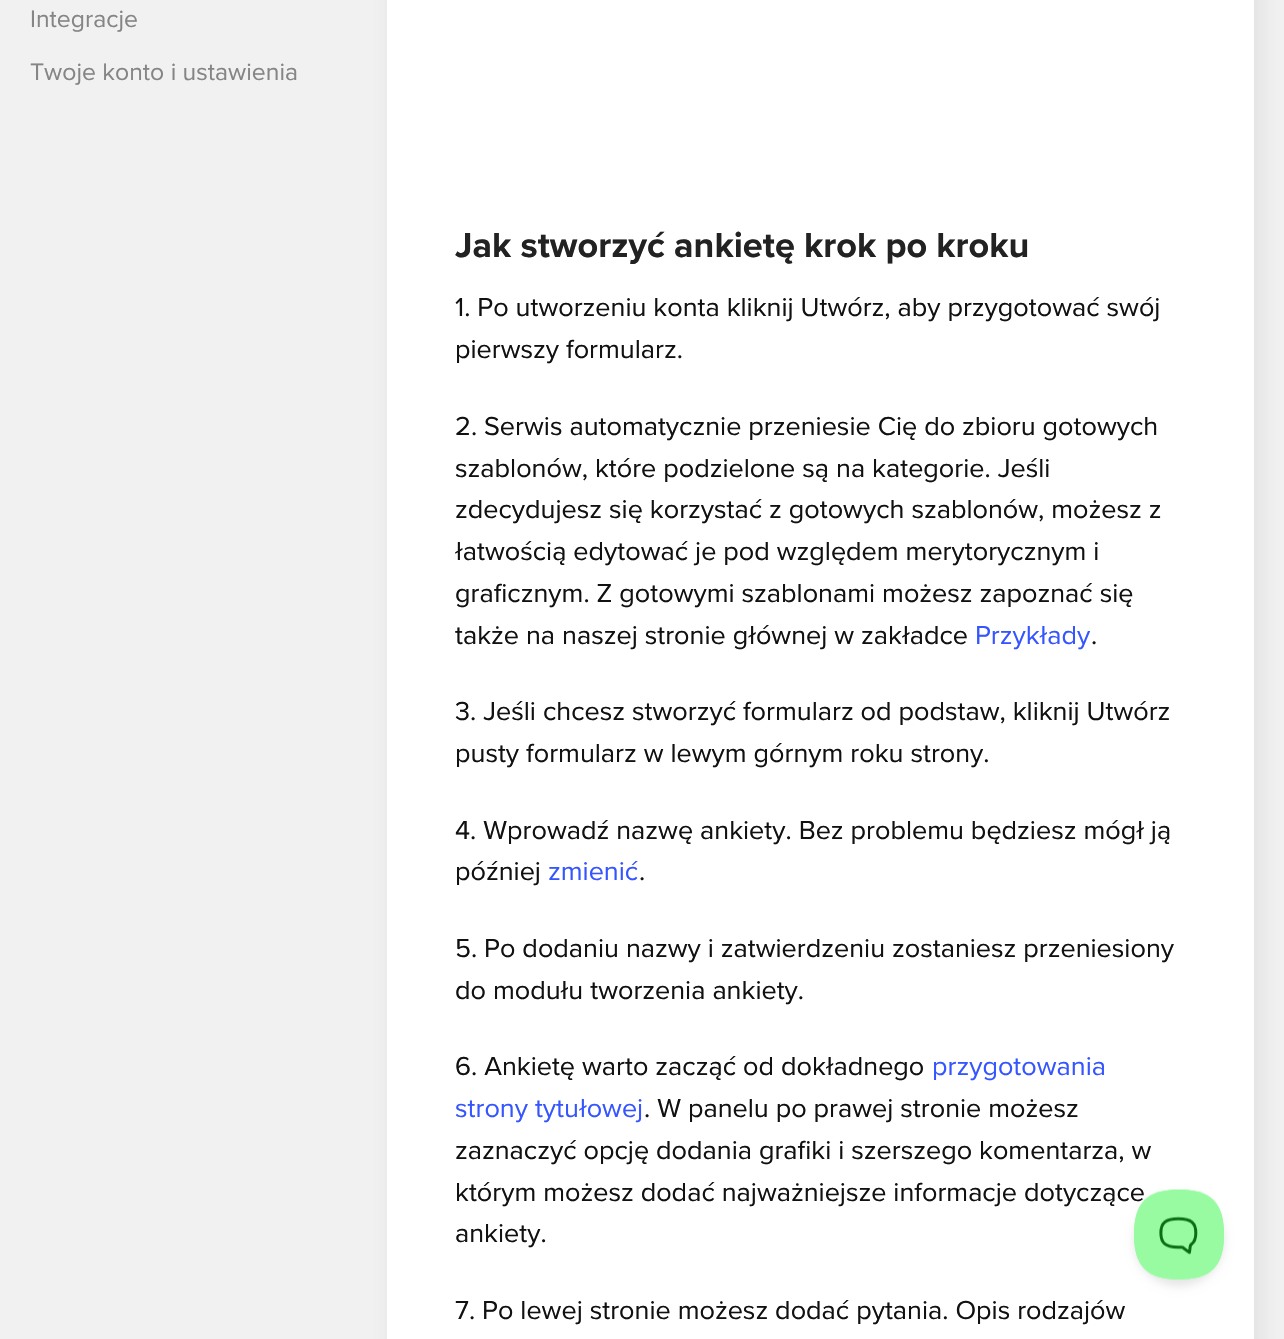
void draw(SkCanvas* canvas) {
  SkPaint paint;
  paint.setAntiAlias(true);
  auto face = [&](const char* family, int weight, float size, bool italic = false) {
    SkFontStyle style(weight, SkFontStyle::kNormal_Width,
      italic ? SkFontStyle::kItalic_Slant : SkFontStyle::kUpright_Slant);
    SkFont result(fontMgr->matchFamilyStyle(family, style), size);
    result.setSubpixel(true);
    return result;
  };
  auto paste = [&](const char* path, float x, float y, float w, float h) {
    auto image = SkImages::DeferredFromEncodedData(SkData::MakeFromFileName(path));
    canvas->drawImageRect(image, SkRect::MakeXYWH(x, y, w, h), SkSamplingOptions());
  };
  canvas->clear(0xfff1f1f1);
  paint.setColor(0x14131313);
  paint.setMaskFilter(SkMaskFilter::MakeBlur(kNormal_SkBlurStyle, 12));
  canvas->drawRect(SkRect::MakeXYWH(393, -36, 867, 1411), paint);
  paint.setMaskFilter(nullptr);
  paint.setColor(0xffffffff);
  canvas->drawRect(SkRect::MakeXYWH(387, 0, 867, 1339), paint);
  paint.setColor(0x1a000000);
  paint.setMaskFilter(SkMaskFilter::MakeBlur(kNormal_SkBlurStyle, 5));
  canvas->drawRoundRect(SkRect::MakeXYWH(1134, 1196, 90, 90), 45, 45, paint);
  paint.setMaskFilter(nullptr);
  auto f0 = face("Proxima Nova", 400, 24.75f);
  paint.setColor(0xff858585);
  canvas->drawString("Integracje", 30, 27, f0, paint);
  canvas->drawString("Twoje konto i ustawienia", 30, 80, f0, paint);
  auto f1 = face("Proxima Nova", 700, 36);
  paint.setColor(0xff222222);
  canvas->drawString("Jak stworzyć ankietę krok po kroku", 455, 257, f1, paint);
  auto f2 = face("Proxima Nova", 400, 27);
  paint.setColor(0xff111111);
  {
    const struct { const char* s; float x, y; } items[] = {
      {"1. Po utworzeniu konta kliknij Utwórz, aby przygotować swój", 455, 316},
      {"pierwszy formularz.", 455, 358},
      {"2. Serwis automatycznie przeniesie Cię do zbioru gotowych", 455, 435},
      {"szablonów, które podzielone są na kategorie. Jeśli", 455, 477},
      {"zdecydujesz się korzystać z gotowych szablonów, możesz z", 455, 518},
      {"łatwością edytować je pod względem merytorycznym i", 455, 560},
      {"graficznym. Z gotowymi szablonami możesz zapoznać się", 455, 602},
      {"także na naszej stronie głównej w zakładce", 455, 644},
    };
    for (auto [s, x, y] : items) {
      canvas->drawString(s, x, y, f2, paint);
    }
  }
  paint.setColor(0xff3555ff);
  canvas->drawString("Przykłady", 975, 644, f2, paint);
  paint.setColor(0xff111111);
  {
    const struct { const char* s; float x, y; } items[] = {
      {".", 1091, 644},
      {"3. Jeśli chcesz stworzyć formularz od podstaw, kliknij Utwórz", 455, 720},
      {"pusty formularz w lewym górnym roku strony.", 455, 762},
      {"4. Wprowadź nazwę ankiety. Bez problemu będziesz mógł ją", 455, 839},
      {"później", 455, 880},
    };
    for (auto [s, x, y] : items) {
      canvas->drawString(s, x, y, f2, paint);
    }
  }
  paint.setColor(0xff3555ff);
  canvas->drawString("zmienić", 548, 880, f2, paint);
  paint.setColor(0xff111111);
  {
    const struct { const char* s; float x, y; } items[] = {
      {".", 639, 880},
      {"5. Po dodaniu nazwy i zatwierdzeniu zostaniesz przeniesiony", 455, 957},
      {"do modułu tworzenia ankiety.", 455, 999},
      {"6. Ankietę warto zacząć od dokładnego", 455, 1075},
    };
    for (auto [s, x, y] : items) {
      canvas->drawString(s, x, y, f2, paint);
    }
  }
  paint.setColor(0xff3555ff);
  canvas->drawString("przygotowania", 932, 1075, f2, paint);
  canvas->drawString("strony tytułowej", 455, 1117, f2, paint);
  paint.setColor(0xff111111);
  {
    const struct { const char* s; float x, y; } items[] = {
      {". W panelu po prawej stronie możesz", 644, 1117},
      {"zaznaczyć opcję dodania grafiki i szerszego komentarza, w", 455, 1159},
      {"którym możesz dodać najważniejsze informacje dotyczące", 455, 1201},
      {"ankiety.", 455, 1242},
      {"7. Po lewej stronie możesz dodać pytania. Opis rodzajów", 455, 1319},
    };
    for (auto [s, x, y] : items) {
      canvas->drawString(s, x, y, f2, paint);
    }
  }
  paste("img/1.png", 1134, 1189, 90, 91);
}
